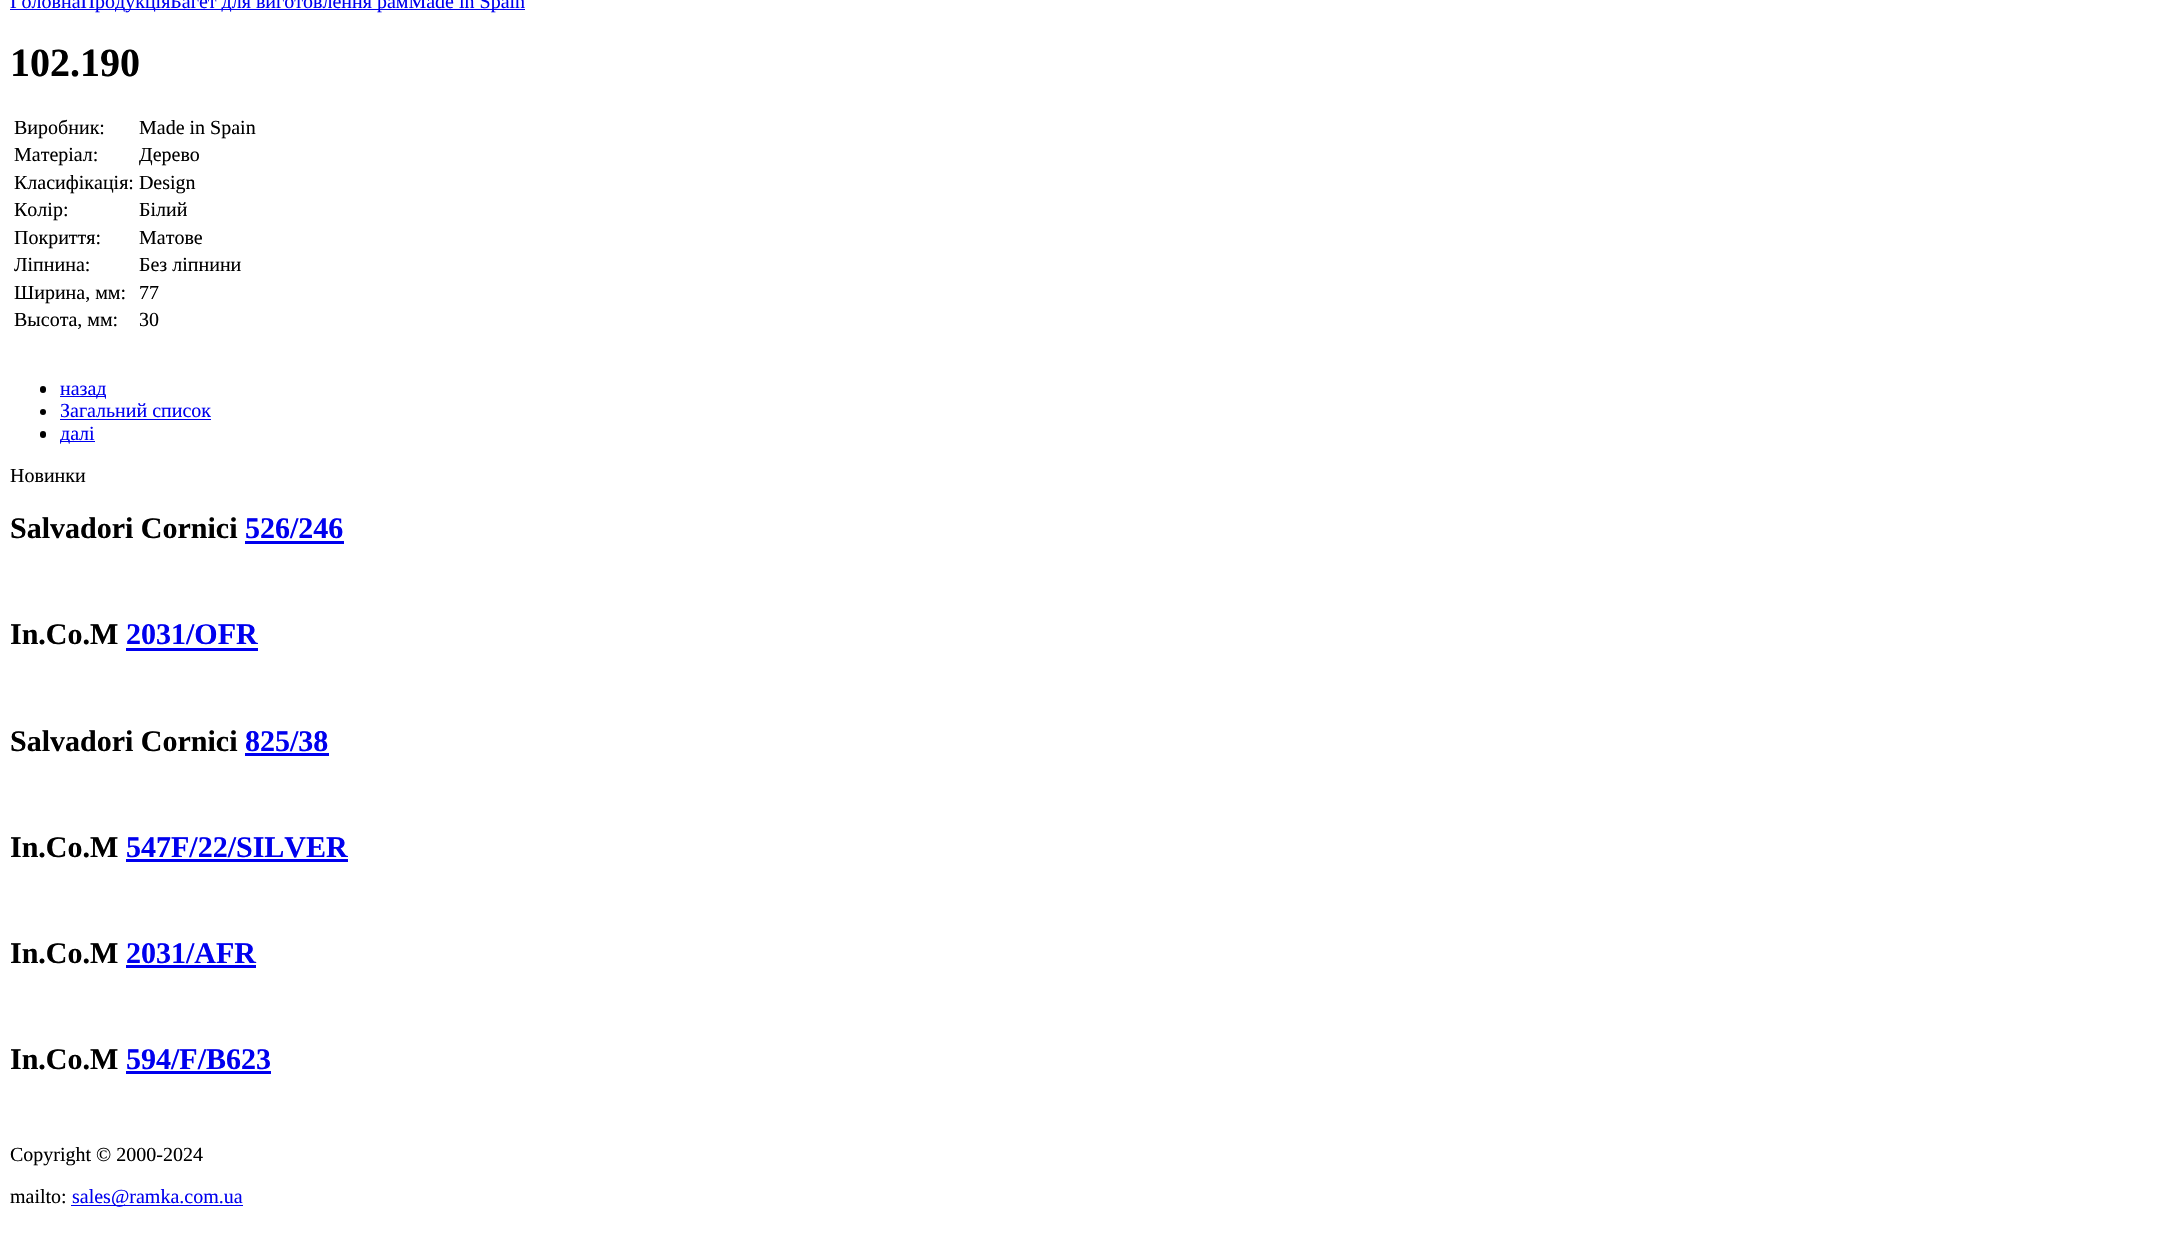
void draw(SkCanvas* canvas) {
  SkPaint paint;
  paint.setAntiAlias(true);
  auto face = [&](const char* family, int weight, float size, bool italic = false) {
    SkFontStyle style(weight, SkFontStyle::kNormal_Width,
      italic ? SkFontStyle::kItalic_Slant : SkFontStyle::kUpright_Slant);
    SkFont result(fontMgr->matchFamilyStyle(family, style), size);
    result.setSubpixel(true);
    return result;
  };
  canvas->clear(0xffffffff);
  paint.setColor(0xff0000ee);
  canvas->drawRect(SkRect::MakeXYWH(10, 9, 515, 1), paint);
  paint.setColor(0xff000000);
  canvas->drawRoundRect(SkRect::MakeXYWH(40, 386, 6, 7), 3, 3, paint);
  paint.setColor(0xff0000ee);
  canvas->drawRect(SkRect::MakeXYWH(60, 396, 46, 1), paint);
  paint.setColor(0xff000000);
  canvas->drawCircle(43, 412, 3, paint);
  paint.setColor(0xff0000ee);
  canvas->drawRect(SkRect::MakeXYWH(60, 419, 151, 1), paint);
  paint.setColor(0xff000000);
  canvas->drawRoundRect(SkRect::MakeXYWH(40, 431, 6, 7), 3, 3, paint);
  {
    const struct { float x, y, w, h; SkColor color; } items[] = {
      {60, 441, 35, 1, 0xff0000ee},
      {245, 541, 99, 3, 0xff0000ee},
      {126, 648, 132, 3, 0xff0000ee},
      {245, 753, 84, 3, 0xff0000ee},
      {126, 859, 222, 3, 0xff0000ee},
      {126, 965, 130, 3, 0xff0000ee},
      {126, 1071, 145, 3, 0xff0000ee},
      {71, 1205, 172, 1, 0xff0000ee},
    };
    for (auto [x, y, w, h, color] : items) {
      paint.setColor(color);
      canvas->drawRect(SkRect::MakeXYWH(x, y, w, h), paint);
    }
  }
  auto f0 = face("Liberation Serif", 400, 20);
  canvas->drawString("ГоловнаПродукціяБагет для виготовлення рамMade in Spain", 10, 8, f0, paint);
  auto f1 = face("Liberation Serif", 700, 40);
  paint.setColor(0xff000000);
  canvas->drawString("102.190", 10, 76, f1, paint);
  {
    const struct { const char* s; float x, y; } items[] = {
      {"Виробник:", 14, 134},
      {"Made in Spain", 139, 134},
      {"Матеріал:", 14, 161},
      {"Дерево", 139, 161},
      {"Класифікація: Design", 14, 189},
      {"Колір:", 14, 216},
      {"Білий", 139, 216},
      {"Покриття:", 14, 244},
      {"Матове", 139, 244},
      {"Ліпнина:", 14, 271},
      {"Без ліпнини", 139, 271},
      {"Ширина, мм:", 14, 299},
      {"77", 139, 299},
      {"Высота, мм:", 14, 326},
      {"30", 139, 326},
    };
    for (auto [s, x, y] : items) {
      canvas->drawString(s, x, y, f0, paint);
    }
  }
  paint.setColor(0xff0000ee);
  {
    const struct { const char* s; float x, y; } items[] = {
      {"назад", 60, 395},
      {"Загальний список", 60, 417},
      {"далі", 60, 440},
    };
    for (auto [s, x, y] : items) {
      canvas->drawString(s, x, y, f0, paint);
    }
  }
  paint.setColor(0xff000000);
  canvas->drawString("Новинки", 10, 482, f0, paint);
  auto f2 = face("Liberation Serif", 700, 30);
  canvas->drawString("Salvadori Cornici", 10, 538, f2, paint);
  paint.setColor(0xff0000ee);
  canvas->drawString("526/246", 245, 538, f2, paint);
  paint.setColor(0xff000000);
  canvas->drawString("In.Co.M", 10, 644, f2, paint);
  paint.setColor(0xff0000ee);
  canvas->drawString("2031/OFR", 126, 644, f2, paint);
  paint.setColor(0xff000000);
  canvas->drawString("Salvadori Cornici", 10, 751, f2, paint);
  paint.setColor(0xff0000ee);
  canvas->drawString("825/38", 245, 751, f2, paint);
  paint.setColor(0xff000000);
  canvas->drawString("In.Co.M", 10, 857, f2, paint);
  paint.setColor(0xff0000ee);
  canvas->drawString("547F/22/SILVER", 126, 857, f2, paint);
  paint.setColor(0xff000000);
  canvas->drawString("In.Co.M", 10, 963, f2, paint);
  paint.setColor(0xff0000ee);
  canvas->drawString("2031/AFR", 126, 963, f2, paint);
  paint.setColor(0xff000000);
  canvas->drawString("In.Co.M", 10, 1069, f2, paint);
  paint.setColor(0xff0000ee);
  canvas->drawString("594/F/B623", 126, 1069, f2, paint);
  paint.setColor(0xff000000);
  canvas->drawString("Copyright © 2000-2024", 10, 1161, f0, paint);
  canvas->drawString("mailto:", 10, 1203, f0, paint);
  paint.setColor(0xff0000ee);
  canvas->drawString("sales@ramka.com.ua", 72, 1203, f0, paint);
}
